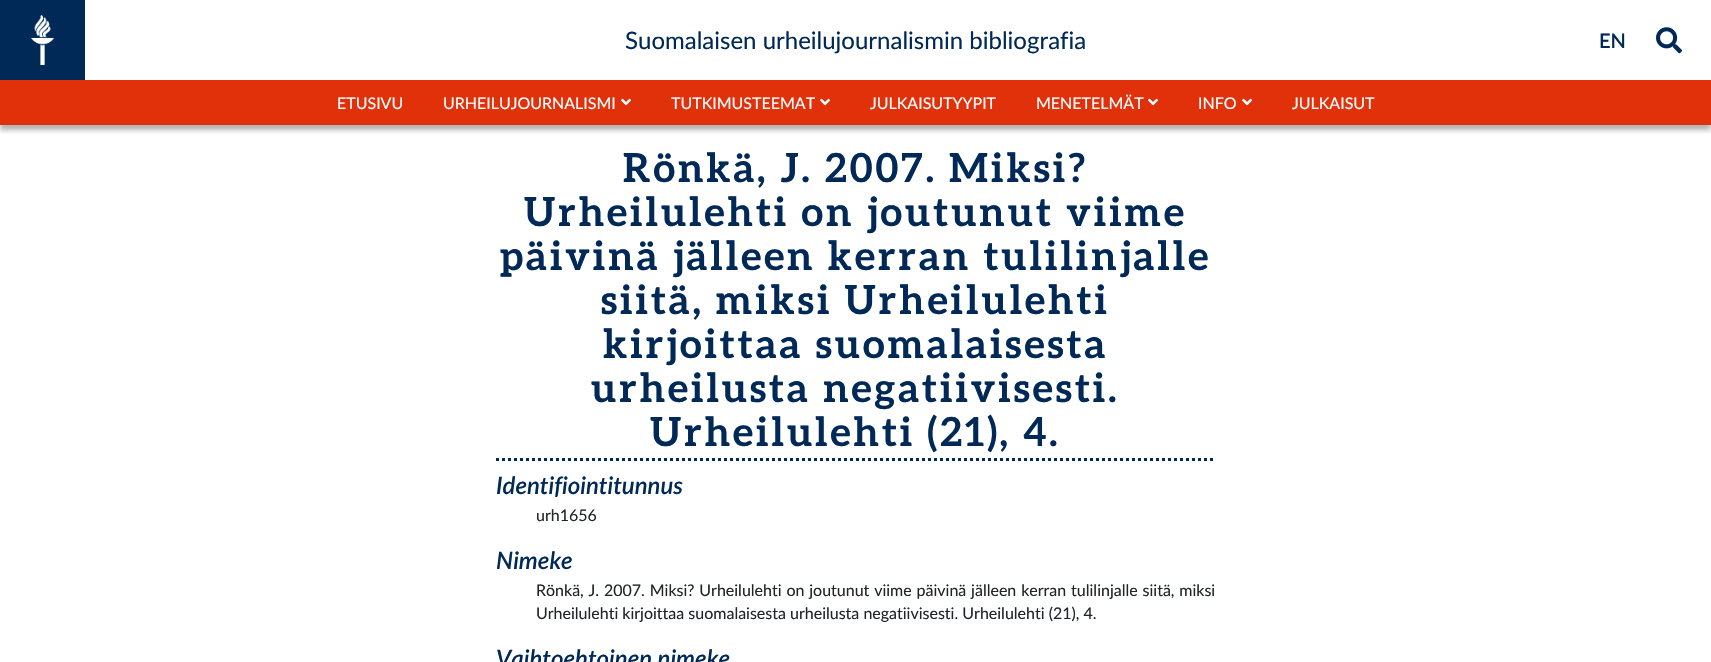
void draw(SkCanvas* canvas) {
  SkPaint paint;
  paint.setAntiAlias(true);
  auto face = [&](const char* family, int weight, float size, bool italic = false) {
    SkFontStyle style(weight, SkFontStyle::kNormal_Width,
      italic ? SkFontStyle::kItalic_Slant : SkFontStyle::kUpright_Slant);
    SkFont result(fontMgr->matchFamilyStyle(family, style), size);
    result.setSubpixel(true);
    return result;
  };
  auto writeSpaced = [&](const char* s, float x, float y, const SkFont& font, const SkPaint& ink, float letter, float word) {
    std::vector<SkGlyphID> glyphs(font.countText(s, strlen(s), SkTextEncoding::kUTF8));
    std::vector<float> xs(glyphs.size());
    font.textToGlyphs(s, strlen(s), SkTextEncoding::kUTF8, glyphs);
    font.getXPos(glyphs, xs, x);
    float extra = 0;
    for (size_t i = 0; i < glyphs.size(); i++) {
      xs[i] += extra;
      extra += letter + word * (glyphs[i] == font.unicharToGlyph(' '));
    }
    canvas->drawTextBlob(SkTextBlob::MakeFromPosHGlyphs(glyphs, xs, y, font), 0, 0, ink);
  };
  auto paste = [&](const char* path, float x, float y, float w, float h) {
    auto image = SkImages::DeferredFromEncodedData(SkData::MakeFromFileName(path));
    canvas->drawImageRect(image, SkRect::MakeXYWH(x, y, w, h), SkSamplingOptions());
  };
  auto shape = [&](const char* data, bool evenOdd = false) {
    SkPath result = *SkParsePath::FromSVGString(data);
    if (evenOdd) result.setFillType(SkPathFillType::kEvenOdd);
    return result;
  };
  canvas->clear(0xffffffff);
  canvas->save();
  canvas->clipRect(SkRect::MakeXYWH(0, 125, 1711, 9));
  paint.setColor(0x4d000000);
  paint.setMaskFilter(SkMaskFilter::MakeBlur(kNormal_SkBlurStyle, 2.5f));
  canvas->drawRect(SkRect::MakeXYWH(0, 5, 1711, 125), paint);
  paint.setMaskFilter(nullptr);
  canvas->restore();
  paint.setColor(0xff002957);
  canvas->drawRect(SkRect::MakeXYWH(0, 0, 85, 80), paint);
  paste("img/1.png", 31, 15, 23, 50);
  paste("img/2.png", 1656, 27, 26, 27);
  paint.setColor(0xffe1310a);
  canvas->drawRect(SkRect::MakeXYWH(0, 80, 1711, 45), paint);
  paste("img/3.png", 621, 98, 10, 8);
  paste("img/3.png", 820, 98, 10, 8);
  paste("img/3.png", 1148, 98, 10, 8);
  paste("img/3.png", 1242, 98, 10, 8);
  paint.setStroke(true);
  paint.setStrokeWidth(3);
  paint.setColor(0xff002957);
  paint.setPathEffect(SkDashPathEffect::Make({{3, 3}}, 0));
  canvas->drawPath(shape("M496 459.5H1216"), paint);
  paint.setPathEffect(nullptr);
  auto f0 = face("Lato", 400, 24);
  paint.setStroke(false);
  canvas->drawString("Suomalaisen urheilujournalismin bibliografia", 625, 49, f0, paint);
  auto f1 = face("Lato", 600, 20);
  canvas->drawString("EN", 1599, 48, f1, paint);
  auto f2 = face("Lato", 400, 16);
  paint.setColor(0xffffffff);
  {
    const struct { const char* s; float x, y; } items[] = {
      {"ETUSIVU", 337, 109},
      {"URHEILUJOURNALISMI", 443, 109},
      {"TUTKIMUSTEEMAT", 671, 109},
      {"JULKAISUTYYPIT", 870, 109},
      {"MENETELMÄT", 1036, 109},
      {"INFO", 1198, 109},
      {"JULKAISUT", 1292, 109},
    };
    for (auto [s, x, y] : items) {
      canvas->drawString(s, x, y, f2, paint);
    }
  }
  auto f3 = face("Aleo", 700, 40);
  paint.setColor(0xff002957);
  {
    const struct { const char* s; float x, y; } items[] = {
      {"Rönkä, J. 2007. Miksi?", 623, 182},
      {"Urheilulehti on joutunut viime", 524, 226},
      {"päivinä jälleen kerran tulilinjalle", 500, 270},
      {"siitä, miksi Urheilulehti", 601, 314},
      {"kirjoittaa suomalaisesta", 603, 358},
      {"urheilusta negatiivisesti.", 591, 402},
      {"Urheilulehti (21), 4.", 650, 446},
    };
    for (auto [s, x, y] : items) {
      writeSpaced(s, x, y, f3, paint, 3, 0);
    }
  }
  auto f4 = face("Lato", 600, 24, true);
  canvas->drawString("Identifiointitunnus", 496, 494, f4, paint);
  paint.setColor(0xff212529);
  canvas->drawString("urh1656", 536, 521, f2, paint);
  paint.setColor(0xff002957);
  canvas->drawString("Nimeke", 496, 569, f4, paint);
  paint.setColor(0xff212529);
  writeSpaced("Rönkä, J. 2007. Miksi? Urheilulehti on joutunut viime päivinä jälleen kerran tulilinjalle siitä, miksi", 536, 596, f2, paint, 0, 0.75f);
  canvas->drawString("Urheilulehti kirjoittaa suomalaisesta urheilusta negatiivisesti. Urheilulehti (21), 4.", 536, 619, f2, paint);
  paint.setColor(0xff002957);
  canvas->drawString("Vaihtoehtoinen nimeke", 496, 667, f4, paint);
}
